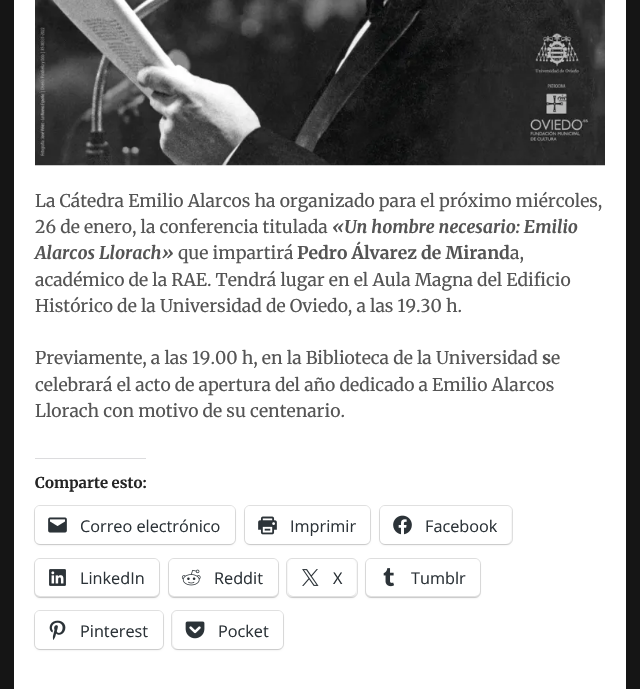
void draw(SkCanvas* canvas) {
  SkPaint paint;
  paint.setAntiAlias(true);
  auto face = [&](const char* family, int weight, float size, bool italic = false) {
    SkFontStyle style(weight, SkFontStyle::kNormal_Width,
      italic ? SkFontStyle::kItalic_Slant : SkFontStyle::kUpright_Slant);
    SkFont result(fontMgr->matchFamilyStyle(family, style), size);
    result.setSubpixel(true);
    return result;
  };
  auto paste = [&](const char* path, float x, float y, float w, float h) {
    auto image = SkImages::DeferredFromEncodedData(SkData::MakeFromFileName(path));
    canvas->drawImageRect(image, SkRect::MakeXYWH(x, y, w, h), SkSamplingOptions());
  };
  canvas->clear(0xff151515);
  paint.setColor(0xffffffff);
  canvas->drawRect(SkRect::MakeXYWH(14, 0, 612, 689), paint);
  paste("img/1.png", 35, 0, 570, 166);
  paint.setColor(0xffdcdcde);
  canvas->drawRect(SkRect::MakeXYWH(35, 458, 111, 1), paint);
  paint.setStroke(true);
  paint.setStrokeWidth(1);
  paint.setColor(0xffe0e0e0);
  canvas->drawRoundRect(SkRect::MakeXYWH(34.5f, 505.5f, 201, 39), 5.5f, 5.5f, paint);
  paint.setStroke(false);
  paint.setColor(0x1f000000);
  paint.setMaskFilter(SkMaskFilter::MakeBlur(kNormal_SkBlurStyle, 1));
  canvas->drawRoundRect(SkRect::MakeXYWH(35, 508, 200, 37), 5, 5, paint);
  paint.setMaskFilter(nullptr);
  paint.setColor(0xffffffff);
  canvas->drawRoundRect(SkRect::MakeXYWH(35, 506, 200, 38), 5, 5, paint);
  paste("img/2.png", 48, 517, 19, 16);
  paint.setStroke(true);
  paint.setColor(0xffe0e0e0);
  canvas->drawRoundRect(SkRect::MakeXYWH(244.5f, 505.5f, 126, 39), 5.5f, 5.5f, paint);
  paint.setStroke(false);
  paint.setColor(0x1f000000);
  paint.setMaskFilter(SkMaskFilter::MakeBlur(kNormal_SkBlurStyle, 1));
  canvas->drawRoundRect(SkRect::MakeXYWH(245, 508, 125, 37), 5, 5, paint);
  paint.setMaskFilter(nullptr);
  paint.setColor(0xffffffff);
  canvas->drawRoundRect(SkRect::MakeXYWH(245, 506, 125, 38), 5, 5, paint);
  paste("img/3.png", 258, 516, 19, 19);
  paint.setStroke(true);
  paint.setColor(0xffe0e0e0);
  canvas->drawRoundRect(SkRect::MakeXYWH(379.5f, 505.5f, 133, 39), 5.5f, 5.5f, paint);
  paint.setStroke(false);
  paint.setColor(0x1f000000);
  paint.setMaskFilter(SkMaskFilter::MakeBlur(kNormal_SkBlurStyle, 1));
  canvas->drawRoundRect(SkRect::MakeXYWH(380, 508, 131, 37), 5, 5, paint);
  paint.setMaskFilter(nullptr);
  paint.setColor(0xffffffff);
  canvas->drawRoundRect(SkRect::MakeXYWH(380, 506, 131, 38), 5, 5, paint);
  paste("img/4.png", 393, 515, 19, 20);
  paint.setStroke(true);
  paint.setColor(0xffe0e0e0);
  canvas->drawRoundRect(SkRect::MakeXYWH(34.5f, 558.5f, 125, 39), 5.5f, 5.5f, paint);
  paint.setStroke(false);
  paint.setColor(0x1f000000);
  paint.setMaskFilter(SkMaskFilter::MakeBlur(kNormal_SkBlurStyle, 1));
  canvas->drawRoundRect(SkRect::MakeXYWH(35, 560, 124, 38), 5, 5, paint);
  paint.setMaskFilter(nullptr);
  paint.setColor(0xffffffff);
  canvas->drawRoundRect(SkRect::MakeXYWH(35, 559, 124, 37), 5, 5, paint);
  paste("img/5.png", 49, 569, 17, 17);
  paint.setStroke(true);
  paint.setColor(0xffe0e0e0);
  canvas->drawRoundRect(SkRect::MakeXYWH(168.5f, 558.5f, 110, 39), 5.5f, 5.5f, paint);
  paint.setStroke(false);
  paint.setColor(0x1f000000);
  paint.setMaskFilter(SkMaskFilter::MakeBlur(kNormal_SkBlurStyle, 1));
  canvas->drawRoundRect(SkRect::MakeXYWH(169, 560, 109, 38), 5, 5, paint);
  paint.setMaskFilter(nullptr);
  paint.setColor(0xffffffff);
  canvas->drawRoundRect(SkRect::MakeXYWH(169, 559, 109, 37), 5, 5, paint);
  paste("img/6.png", 181, 569, 20, 17);
  paint.setStroke(true);
  paint.setColor(0xffe0e0e0);
  canvas->drawRoundRect(SkRect::MakeXYWH(286.5f, 558.5f, 71, 39), 5.5f, 5.5f, paint);
  paint.setStroke(false);
  paint.setColor(0x1f000000);
  paint.setMaskFilter(SkMaskFilter::MakeBlur(kNormal_SkBlurStyle, 1));
  canvas->drawRoundRect(SkRect::MakeXYWH(288, 560, 68, 38), 5, 5, paint);
  paint.setMaskFilter(nullptr);
  paint.setColor(0xffffffff);
  canvas->drawRoundRect(SkRect::MakeXYWH(288, 559, 68, 37), 5, 5, paint);
  paste("img/7.png", 302, 569, 17, 17);
  paint.setStroke(true);
  paint.setColor(0xffe0e0e0);
  canvas->drawRoundRect(SkRect::MakeXYWH(365.5f, 558.5f, 115, 39), 5.5f, 5.5f, paint);
  paint.setStroke(false);
  paint.setColor(0x1f000000);
  paint.setMaskFilter(SkMaskFilter::MakeBlur(kNormal_SkBlurStyle, 1));
  canvas->drawRoundRect(SkRect::MakeXYWH(366, 560, 114, 38), 5, 5, paint);
  paint.setMaskFilter(nullptr);
  paint.setColor(0xffffffff);
  canvas->drawRoundRect(SkRect::MakeXYWH(366, 559, 114, 37), 5, 5, paint);
  paste("img/8.png", 383, 568, 11, 19);
  paint.setStroke(true);
  paint.setColor(0xffe0e0e0);
  canvas->drawRoundRect(SkRect::MakeXYWH(34.5f, 610.5f, 129, 39), 5.5f, 5.5f, paint);
  paint.setStroke(false);
  paint.setColor(0x1f000000);
  paint.setMaskFilter(SkMaskFilter::MakeBlur(kNormal_SkBlurStyle, 1));
  canvas->drawRoundRect(SkRect::MakeXYWH(35, 613, 128, 37), 5, 5, paint);
  paint.setMaskFilter(nullptr);
  paint.setColor(0xffffffff);
  canvas->drawRoundRect(SkRect::MakeXYWH(35, 611, 128, 38), 5, 5, paint);
  paste("img/9.png", 49, 620, 17, 20);
  paint.setStroke(true);
  paint.setColor(0xffe0e0e0);
  canvas->drawRoundRect(SkRect::MakeXYWH(171.5f, 610.5f, 112, 39), 5.5f, 5.5f, paint);
  paint.setStroke(false);
  paint.setColor(0x1f000000);
  paint.setMaskFilter(SkMaskFilter::MakeBlur(kNormal_SkBlurStyle, 1));
  canvas->drawRoundRect(SkRect::MakeXYWH(173, 613, 110, 37), 5, 5, paint);
  paint.setMaskFilter(nullptr);
  paint.setColor(0xffffffff);
  canvas->drawRoundRect(SkRect::MakeXYWH(173, 611, 110, 38), 5, 5, paint);
  paste("img/10.png", 185, 621, 20, 18);
  auto f0 = face("Merriweather", 400, 17.5f);
  paint.setColor(0xff555555);
  canvas->drawString("La Cátedra Emilio Alarcos ha organizado para el próximo miércoles,", 35, 207, f0, paint);
  canvas->drawString("26 de enero, la conferencia titulada", 35, 233, f0, paint);
  auto f1 = face("Merriweather", 700, 17.5f, true);
  canvas->drawString("«Un hombre necesario: Emilio", 332, 233, f1, paint);
  canvas->drawString("Alarcos Llorach»", 35, 259, f1, paint);
  canvas->drawString("que impartirá", 178, 259, f0, paint);
  auto f2 = face("Merriweather", 700, 17.5f);
  canvas->drawString("Pedro Álvarez de Mirand", 297, 259, f2, paint);
  {
    const struct { const char* s; float x, y; } items[] = {
      {"a,", 510, 259},
      {"académico de la RAE. Tendrá lugar en el Aula Magna del Edificio", 35, 286},
      {"Histórico de la Universidad de Oviedo, a las 19.30 h.", 35, 312},
      {"Previamente, a las 19.00 h, en la Biblioteca de la Universidad", 35, 364},
    };
    for (auto [s, x, y] : items) {
      canvas->drawString(s, x, y, f0, paint);
    }
  }
  canvas->drawString("s", 542, 364, f2, paint);
  {
    const struct { const char* s; float x, y; } items[] = {
      {"e", 551, 364},
      {"celebrará el acto de apertura del año dedicado a Emilio Alarcos", 35, 391},
      {"Llorach con motivo de su centenario.", 35, 417},
    };
    for (auto [s, x, y] : items) {
      canvas->drawString(s, x, y, f0, paint);
    }
  }
  auto f3 = face("Merriweather", 700, 15);
  paint.setColor(0xff252525);
  canvas->drawString("Comparte esto:", 35, 488, f3, paint);
  auto f4 = face("Open Sans", 400, 16.25f);
  paint.setColor(0xff2c3338);
  {
    const struct { const char* s; float x, y; } items[] = {
      {"Correo electrónico", 80, 532},
      {"Imprimir", 290, 532},
      {"Facebook", 425, 532},
      {"LinkedIn", 80, 584},
      {"Reddit", 214, 584},
      {"X", 333, 584},
      {"Tumblr", 411, 584},
      {"Pinterest", 80, 637},
      {"Pocket", 218, 637},
    };
    for (auto [s, x, y] : items) {
      canvas->drawString(s, x, y, f4, paint);
    }
  }
}
